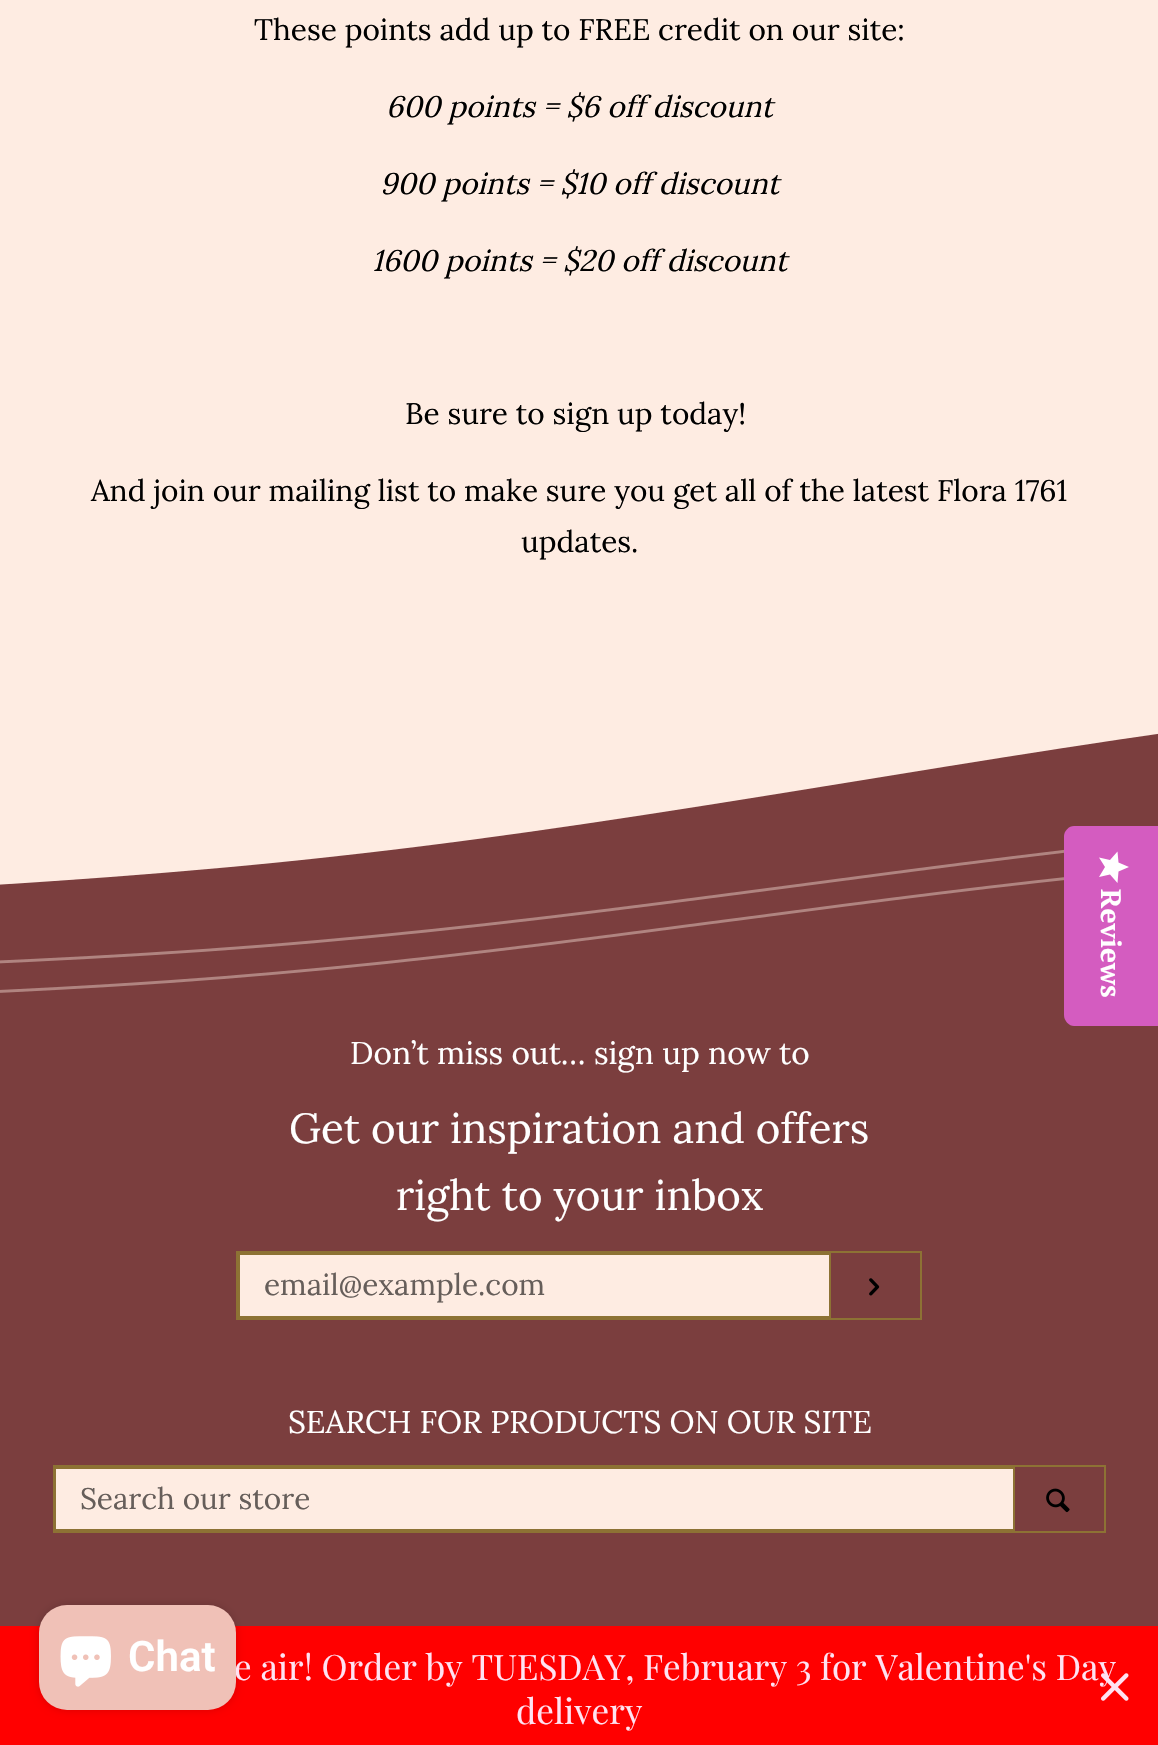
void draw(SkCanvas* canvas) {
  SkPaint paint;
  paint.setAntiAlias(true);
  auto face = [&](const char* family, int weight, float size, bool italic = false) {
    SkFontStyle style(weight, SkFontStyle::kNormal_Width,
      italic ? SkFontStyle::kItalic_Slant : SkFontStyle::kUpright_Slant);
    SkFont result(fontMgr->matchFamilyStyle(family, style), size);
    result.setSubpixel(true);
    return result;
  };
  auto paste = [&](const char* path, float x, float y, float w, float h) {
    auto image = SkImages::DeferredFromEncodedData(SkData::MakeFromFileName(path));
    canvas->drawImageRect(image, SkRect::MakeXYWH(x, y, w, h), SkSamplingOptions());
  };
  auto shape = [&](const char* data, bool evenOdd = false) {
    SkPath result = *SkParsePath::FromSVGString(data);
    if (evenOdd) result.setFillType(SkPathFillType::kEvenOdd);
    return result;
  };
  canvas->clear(0xfffeece2);
  paste("img/1.png", 0, 733, 1158, 296);
  paint.setColor(0xff7b3e3e);
  canvas->drawRect(SkRect::MakeXYWH(0, 1029, 1158, 597), paint);
  paint.setStroke(true);
  paint.setStrokeWidth(2);
  paint.setColor(0xff8d7234);
  canvas->drawRect(SkRect::MakeXYWH(237, 1252, 684, 67), paint);
  paint.setStroke(false);
  paint.setColor(0xfffeece2);
  canvas->drawRect(SkRect::MakeXYWH(239, 1254, 591, 63), paint);
  paint.setStroke(true);
  paint.setColor(0xff8d7234);
  canvas->drawRect(SkRect::MakeXYWH(239, 1254, 591, 63), paint);
  paste("img/2.png", 869, 1278, 11, 18);
  canvas->drawRect(SkRect::MakeXYWH(54, 1466, 1051, 66), paint);
  paint.setStroke(false);
  paint.setColor(0xfffeece2);
  canvas->drawRect(SkRect::MakeXYWH(55, 1468, 959, 62), paint);
  paint.setStroke(true);
  paint.setColor(0xff8d7234);
  canvas->drawRect(SkRect::MakeXYWH(55, 1468, 959, 62), paint);
  paste("img/3.png", 1046, 1488, 24, 25);
  paint.setStroke(false);
  paint.setColor(0xffd45cc0);
  canvas->drawPath(shape("M1158 826V1026H1074C1069 1026 1064 1021 1064 1015V836C1064 831 1069 826 1074 826Z"), paint);
  {
    const SkColor colors[] = {0xffffffff, 0xffeaeaea};
    const float stops[] = {1, 1};
    const SkPoint ends[] = {{1129, 851}, {1129, 883}};
    paint.setShader(SkGradientShader::MakeLinear(ends, colors, stops, 2, SkTileMode::kClamp));
    paint.setAlpha(255);
  }
  canvas->drawPath(shape("M1105 867L1099 877L1110 874.5L1117.5 883L1118.5 871.5L1129 867L1118.5 862.5L1117.5 851.5L1110 860L1099 857.5Z"), paint);
  paint.setShader(nullptr);
  paint.setColor(0xffff0000);
  canvas->drawRect(SkRect::MakeXYWH(0, 1626, 1158, 119), paint);
  paint.setColor(0x26000000);
  paint.setMaskFilter(SkMaskFilter::MakeBlur(kNormal_SkBlurStyle, 4.5f));
  canvas->drawRoundRect(SkRect::MakeXYWH(39, 1605, 197, 105), 28, 28, paint);
  paint.setMaskFilter(nullptr);
  auto f0 = face("Lora", 400, 29.75f);
  paint.setColor(0xff000000);
  canvas->drawString("These points add up to FREE credit on our site:", 254, 40, f0, paint);
  auto f1 = face("Lora", 400, 29.75f, true);
  {
    const struct { const char* s; float x, y; } items[] = {
      {"600 points = $6 off discount", 386, 117},
      {"900 points = $10 off discount", 380, 194},
      {"1600 points = $20 off discount", 372, 271},
    };
    for (auto [s, x, y] : items) {
      canvas->drawString(s, x, y, f1, paint);
    }
  }
  {
    const struct { const char* s; float x, y; } items[] = {
      {"Be sure to sign up today!", 405, 424},
      {"And join our mailing list to make sure you get all of the latest Flora 1761", 91, 501},
      {"updates.", 521, 552},
    };
    for (auto [s, x, y] : items) {
      canvas->drawString(s, x, y, f0, paint);
    }
  }
  auto f2 = face("Lora", 400, 31.5f);
  paint.setColor(0xffffffff);
  canvas->drawString("Don’t miss out… sign up now to", 350, 1064, f2, paint);
  auto f3 = face("Lora", 400, 42);
  canvas->drawString("Get our inspiration and offers", 289, 1143, f3, paint);
  canvas->drawString("right to your inbox", 396, 1210, f3, paint);
  paint.setColor(0xff665e5a);
  canvas->drawString("email@example.com", 264, 1295, f0, paint);
  paint.setColor(0xffffffff);
  canvas->drawString("SEARCH FOR PRODUCTS ON OUR SITE", 288, 1433, f2, paint);
  paint.setColor(0xff665e5a);
  canvas->drawString("Search our store", 80, 1509, f0, paint);
  auto f4 = face("PT Serif", 700, 28);
  paint.setColor(0xffffffff);
  canvas->save();
  canvas->rotate(90, 1101, 889);
  canvas->drawString("Reviews", 1101, 889, f4, paint);
  canvas->restore();
  auto f5 = face("Playfair Display", 400, 35);
  paint.setColor(0xffffe2f2);
  canvas->drawString("e air! Order by TUESDAY, February 3 for Valentine's Day", 234, 1680, f5, paint);
  paint.setColor(0xfff0c1b7);
  canvas->drawRoundRect(SkRect::MakeXYWH(39, 1605, 197, 105), 28, 28, paint);
  auto f6 = face("Roboto", 600, 42);
  paint.setColor(0xffffffff);
  canvas->drawString("Chat", 128, 1671, f6, paint);
  paste("img/4.png", 60, 1636, 51, 51);
  paint.setColor(0xffffe2f2);
  canvas->drawString("delivery", 516, 1724, f5, paint);
  paste("img/5.png", 1101, 1673, 28, 28);
}
